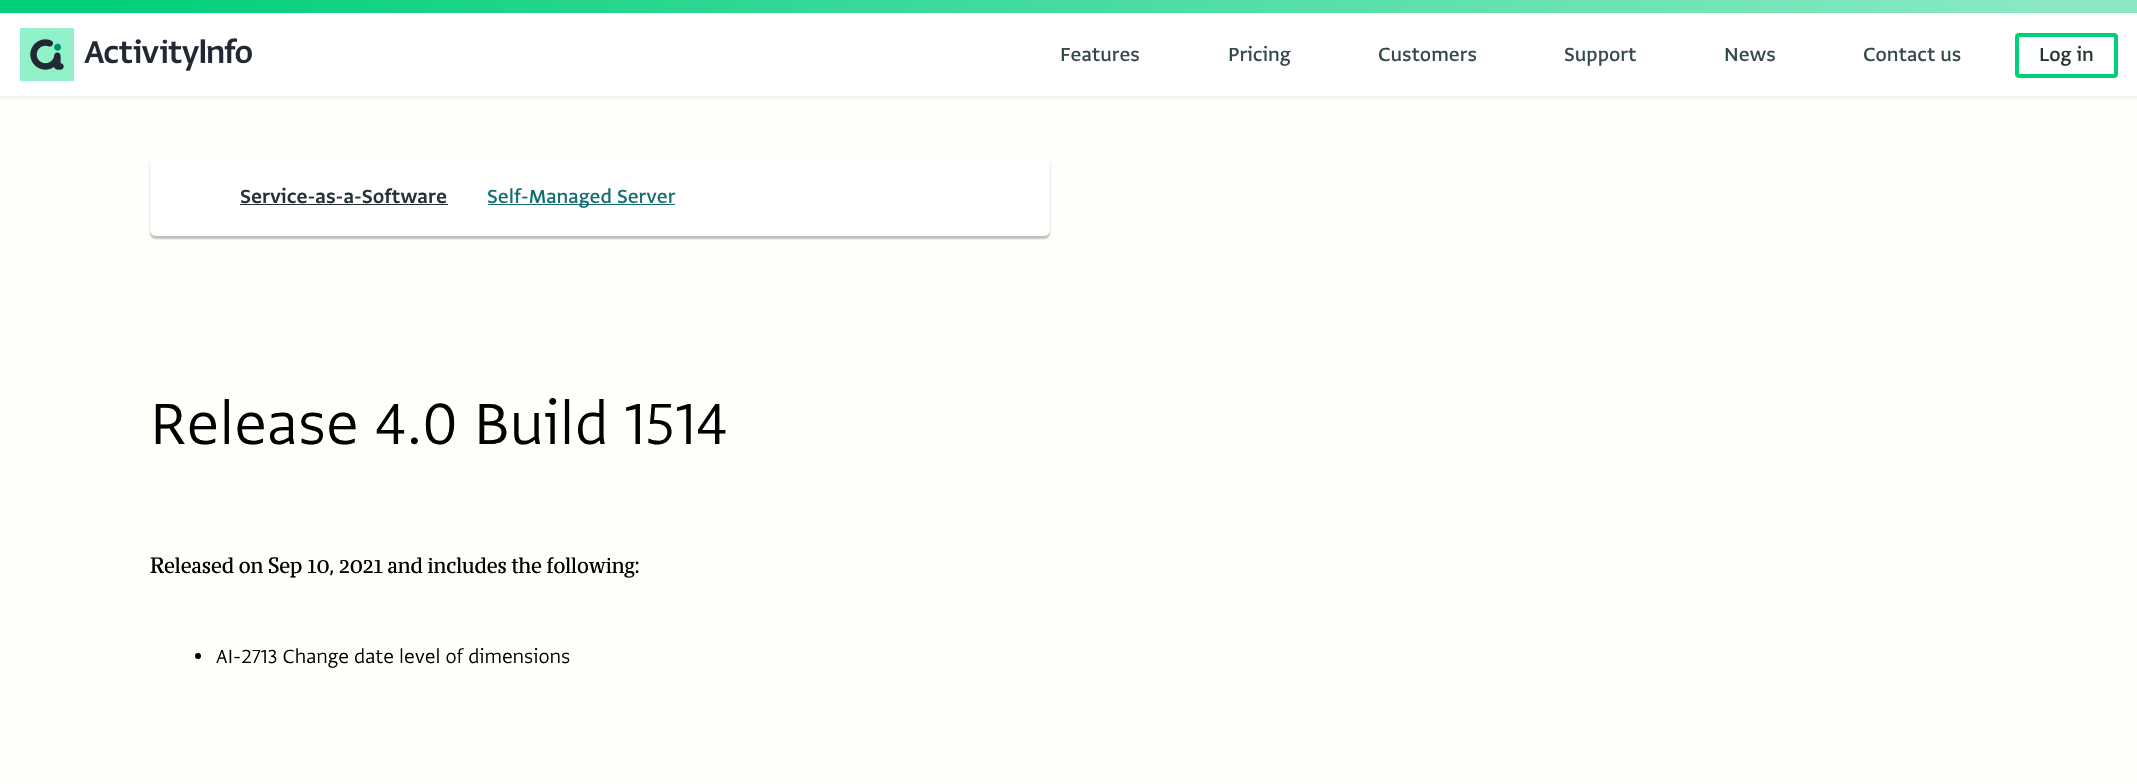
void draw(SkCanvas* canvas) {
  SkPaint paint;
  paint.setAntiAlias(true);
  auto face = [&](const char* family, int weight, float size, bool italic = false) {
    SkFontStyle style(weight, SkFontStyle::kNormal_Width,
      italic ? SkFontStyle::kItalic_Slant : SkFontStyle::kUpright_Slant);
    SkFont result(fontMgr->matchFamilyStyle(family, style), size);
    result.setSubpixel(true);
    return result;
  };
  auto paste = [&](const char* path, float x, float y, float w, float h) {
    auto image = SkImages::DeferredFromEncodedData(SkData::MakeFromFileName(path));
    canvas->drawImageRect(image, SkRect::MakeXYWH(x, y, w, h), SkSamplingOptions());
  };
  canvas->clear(0xfffefefa);
  {
    const SkColor colors[] = {0xff00cf79, 0xff8ae9c3};
    const float stops[] = {0.04f, 0.96f};
    const SkPoint ends[] = {{0, 6.3f}, {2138, 6.2f}};
    paint.setShader(SkGradientShader::MakeLinear(ends, colors, stops, 2, SkTileMode::kClamp));
    paint.setAlpha(255);
  }
  canvas->drawRect(SkRect::MakeXYWH(0, 0, 2137, 13), paint);
  paint.setShader(nullptr);
  paint.setColor(0x0a000000);
  paint.setMaskFilter(SkMaskFilter::MakeBlur(kNormal_SkBlurStyle, 0.5f));
  canvas->drawRect(SkRect::MakeXYWH(0, 15, 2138, 84), paint);
  paint.setMaskFilter(nullptr);
  paint.setColor(0xffffffff);
  canvas->drawRect(SkRect::MakeXYWH(0, 13, 2137, 83), paint);
  paste("img/1.png", 20, 28, 232, 53);
  paint.setStroke(true);
  paint.setStrokeWidth(4);
  paint.setColor(0xff00cf79);
  canvas->drawRoundRect(SkRect::MakeXYWH(2017, 35, 99, 41), 2, 2, paint);
  paint.setStroke(false);
  paint.setColor(0x40000000);
  paint.setMaskFilter(SkMaskFilter::MakeBlur(kNormal_SkBlurStyle, 1));
  canvas->drawRoundRect(SkRect::MakeXYWH(150, 159, 900, 80), 6, 6, paint);
  paint.setMaskFilter(nullptr);
  paint.setColor(0xffffffff);
  canvas->drawRoundRect(SkRect::MakeXYWH(150, 156, 900, 80), 6, 6, paint);
  paint.setColor(0xff243233);
  canvas->drawRect(SkRect::MakeXYWH(240, 204, 208, 1), paint);
  paint.setColor(0xff176d73);
  canvas->drawRect(SkRect::MakeXYWH(488, 204, 187, 1), paint);
  paint.setColor(0xff000000);
  canvas->drawCircle(198, 656, 3, paint);
  auto f0 = face("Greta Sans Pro", 500, 22.5f);
  paint.setColor(0xff354a4c);
  {
    const struct { const char* s; float x, y; } items[] = {
      {"Features", 1060, 61},
      {"Pricing", 1228, 61},
      {"Customers", 1378, 61},
      {"Support", 1564, 61},
      {"News", 1724, 61},
      {"Contact us", 1863, 61},
    };
    for (auto [s, x, y] : items) {
      canvas->drawString(s, x, y, f0, paint);
    }
  }
  paint.setColor(0xff243233);
  canvas->drawString("Log in", 2039, 61, f0, paint);
  auto f1 = face("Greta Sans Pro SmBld", 600, 22.5f);
  canvas->drawString("Service-as-a-Software", 240, 203, f1, paint);
  paint.setColor(0xff176d73);
  canvas->drawString("Self-Managed Server", 487, 203, f0, paint);
  auto f2 = face("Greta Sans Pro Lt", 300, 68.75f);
  paint.setColor(0xff000000);
  canvas->drawString("Release 4.0 Build 1514", 150, 444, f2, paint);
  auto f3 = face("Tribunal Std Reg", 400, 20);
  canvas->drawString("Released on Sep 10, 2021 and includes the following:", 150, 573, f3, paint);
  auto f4 = face("Greta Sans Pro Lt", 300, 22.5f);
  canvas->drawString("AI-2713 Change date level of dimensions", 216, 663, f4, paint);
}
